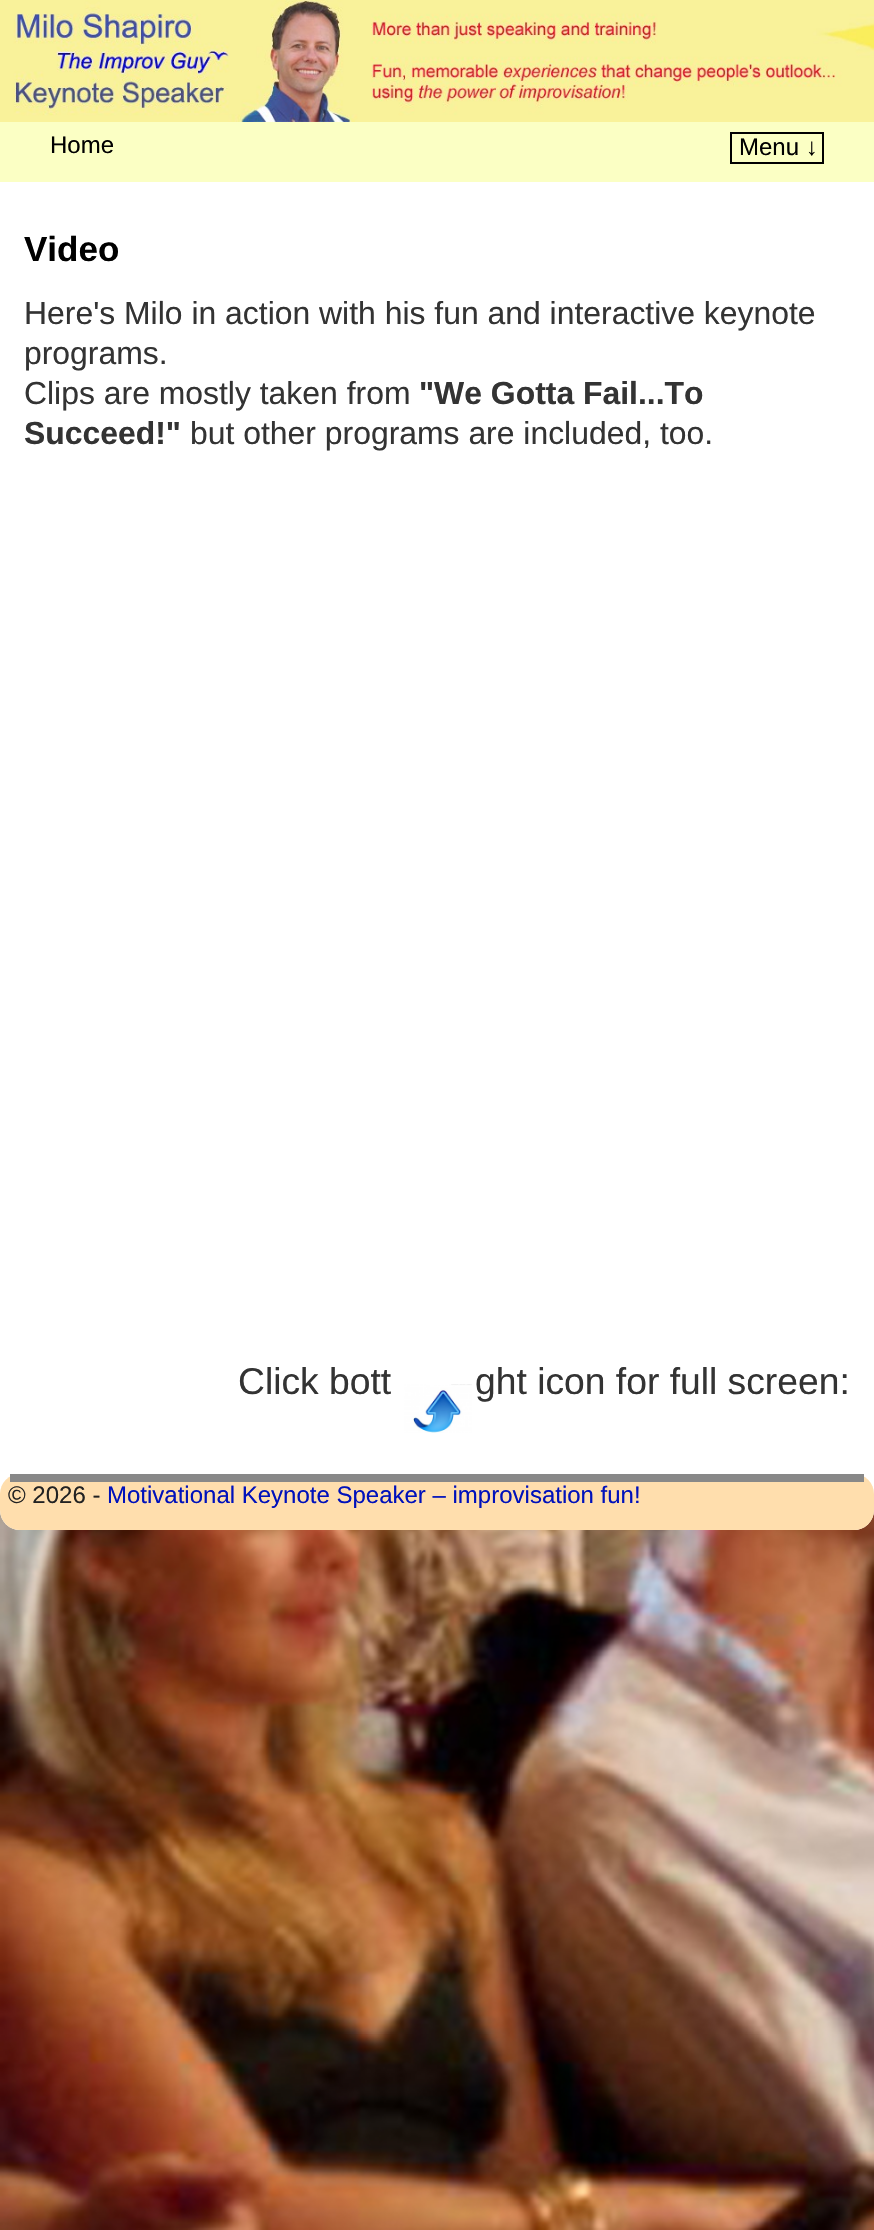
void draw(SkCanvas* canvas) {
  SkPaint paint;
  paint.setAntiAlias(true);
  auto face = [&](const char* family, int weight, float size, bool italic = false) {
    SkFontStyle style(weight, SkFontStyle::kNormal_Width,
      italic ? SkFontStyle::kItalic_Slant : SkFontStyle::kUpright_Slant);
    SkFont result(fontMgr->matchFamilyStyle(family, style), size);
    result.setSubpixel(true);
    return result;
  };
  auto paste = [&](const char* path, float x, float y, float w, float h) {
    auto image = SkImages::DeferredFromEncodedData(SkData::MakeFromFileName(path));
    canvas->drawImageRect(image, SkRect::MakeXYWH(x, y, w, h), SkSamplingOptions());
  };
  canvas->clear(0xffffffff);
  paste("img/1.png", 0, 1510, 874, 720);
  paint.setColor(0xffffffff);
  canvas->drawRoundRect(SkRect::MakeXYWH(0, 0, 874, 1530), 20, 20, paint);
  paste("img/2.png", 0, 0, 874, 122);
  paint.setColor(0xfffbffc4);
  canvas->drawRect(SkRect::MakeXYWH(0, 122, 874, 60), paint);
  paint.setStroke(true);
  paint.setStrokeWidth(2);
  paint.setColor(0xff000000);
  canvas->drawRect(SkRect::MakeXYWH(731, 133, 92, 30), paint);
  paste("img/3.png", 404, 1384, 68, 49);
  paint.setStroke(false);
  paint.setColor(0xffffdead);
  canvas->drawRoundRect(SkRect::MakeXYWH(0, 1474, 874, 56), 20, 20, paint);
  paint.setColor(0xff888888);
  canvas->drawRect(SkRect::MakeXYWH(10, 1474, 854, 8), paint);
  auto f0 = face("Liberation Sans", 400, 24);
  paint.setColor(0xff000000);
  canvas->drawString("Home", 50, 153, f0, paint);
  canvas->drawString("Menu ↓", 739, 155, f0, paint);
  auto f1 = face("Liberation Sans", 700, 35);
  canvas->drawString("Video", 24, 261, f1, paint);
  auto f2 = face("Liberation Sans", 400, 31.9f);
  paint.setColor(0xff333333);
  {
    const struct { const char* s; float x, y; } items[] = {
      {"Here's Milo in action with his fun and interactive keynote", 24, 324},
      {"programs.", 24, 364},
      {"Clips are mostly taken from", 24, 404},
    };
    for (auto [s, x, y] : items) {
      canvas->drawString(s, x, y, f2, paint);
    }
  }
  auto f3 = face("Liberation Sans", 700, 31.9f);
  canvas->drawString("\"We Gotta Fail...To", 419, 404, f3, paint);
  canvas->drawString("Succeed!\"", 24, 444, f3, paint);
  canvas->drawString("but other programs are included, too.", 190, 444, f2, paint);
  auto f4 = face("Liberation Sans", 400, 37.25f);
  canvas->drawString("Click bott", 238, 1394, f4, paint);
  canvas->drawString("ght icon for full screen:", 475, 1394, f4, paint);
  paint.setColor(0xff222222);
  canvas->drawString("© 2026 -", 8, 1503, f0, paint);
  paint.setColor(0xff0011bb);
  canvas->drawString("Motivational Keynote Speaker – improvisation fun!", 107, 1503, f0, paint);
}
